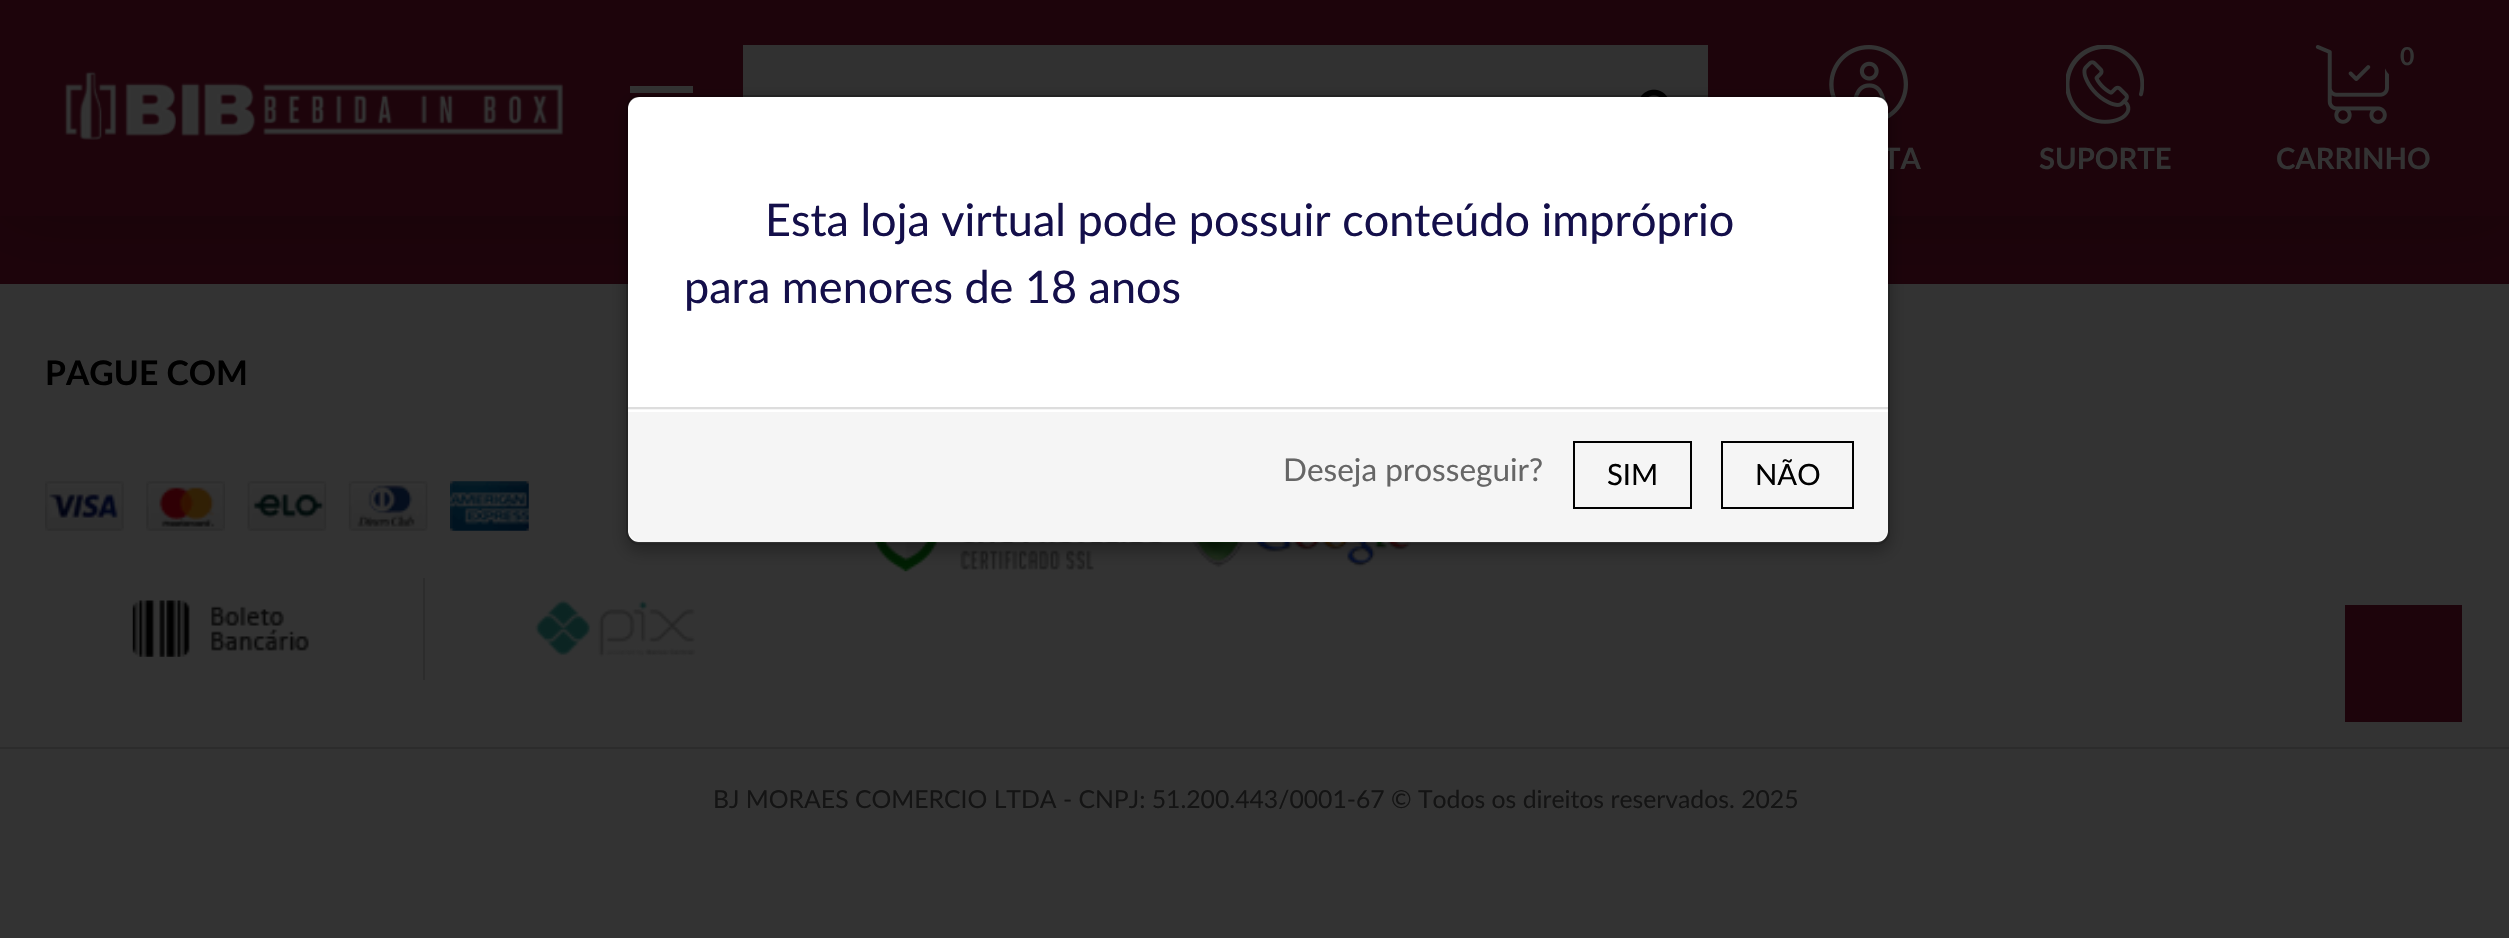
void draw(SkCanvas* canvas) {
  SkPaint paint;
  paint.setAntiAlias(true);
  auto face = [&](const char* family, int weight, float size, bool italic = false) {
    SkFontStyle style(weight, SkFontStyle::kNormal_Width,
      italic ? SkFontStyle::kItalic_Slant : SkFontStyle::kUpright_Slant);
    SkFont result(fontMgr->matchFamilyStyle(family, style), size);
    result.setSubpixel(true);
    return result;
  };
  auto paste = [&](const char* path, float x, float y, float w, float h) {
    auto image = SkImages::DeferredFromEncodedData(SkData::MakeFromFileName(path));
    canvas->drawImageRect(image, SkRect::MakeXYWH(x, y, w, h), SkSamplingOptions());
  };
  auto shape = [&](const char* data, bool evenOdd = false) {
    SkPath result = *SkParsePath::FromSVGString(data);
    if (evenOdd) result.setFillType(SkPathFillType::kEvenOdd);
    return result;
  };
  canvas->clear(0xff333333);
  paint.setColor(0xff1d040b);
  canvas->drawRect(SkRect::MakeXYWH(0, 216, 2509, 68), paint);
  paint.setColor(0x33000000);
  paint.setMaskFilter(SkMaskFilter::MakeBlur(kNormal_SkBlurStyle, 34));
  canvas->drawRect(SkRect::MakeXYWH(0, 0, 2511, 216), paint);
  paint.setMaskFilter(nullptr);
  paint.setColor(0xff1d040b);
  canvas->drawRect(SkRect::MakeXYWH(0, 0, 2509, 216), paint);
  paste("img/1.png", 64, 71, 500, 69);
  paint.setColor(0xff333333);
  canvas->drawRect(SkRect::MakeXYWH(630, 86, 63, 7), paint);
  paint.setColor(0xff313131);
  canvas->drawRect(SkRect::MakeXYWH(743, 45, 965, 52), paint);
  paste("img/2.png", 1640, 89, 28, 8);
  paste("img/3.png", 1829, 45, 79, 74);
  paste("img/4.png", 2066, 45, 78, 79);
  paste("img/5.png", 2315, 45, 74, 79);
  paint.setColor(0xff1d040b);
  canvas->drawCircle(2407.5f, 58.5f, 24.5f, paint);
  paste("img/6.png", 45, 481, 79, 50);
  paste("img/7.png", 146, 481, 79, 50);
  paste("img/8.png", 247, 481, 80, 50);
  paste("img/9.png", 348, 481, 80, 50);
  paste("img/10.png", 450, 481, 79, 50);
  paste("img/11.png", 132, 600, 177, 57);
  paint.setColor(0xff2c2c2c);
  canvas->drawRect(SkRect::MakeXYWH(423, 578, 2, 102), paint);
  paste("img/12.png", 535, 600, 161, 57);
  paste("img/13.png", 874, 542, 289, 30);
  paste("img/14.png", 1192, 542, 219, 26);
  canvas->drawRect(SkRect::MakeXYWH(0, 747, 2509, 2), paint);
  canvas->save();
  canvas->clipPath(shape("M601 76H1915V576H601ZM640 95H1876C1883.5 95 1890 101.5 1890 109V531C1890 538.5 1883.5 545 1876 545H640C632.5 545 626 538.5 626 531V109C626 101.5 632.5 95 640 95Z", true), true);
  paint.setColor(0x4d000000);
  paint.setMaskFilter(SkMaskFilter::MakeBlur(kNormal_SkBlurStyle, 8));
  canvas->drawRoundRect(SkRect::MakeXYWH(626, 101, 1264, 450), 14, 14, paint);
  paint.setMaskFilter(nullptr);
  canvas->restore();
  paint.setColor(0xff1d040b);
  canvas->drawRect(SkRect::MakeXYWH(2345, 605, 117, 117), paint);
  auto f0 = face("Lato", 700, 29.25f);
  paint.setColor(0xff333333);
  canvas->drawString("TA", 1883, 169, f0, paint);
  canvas->drawString("SUPORTE", 2039, 169, f0, paint);
  auto f1 = face("Lato", 700, 24.75f);
  canvas->drawString("0", 2400, 65, f1, paint);
  canvas->drawString("CARRINHO", 2276, 169, f0, paint);
  auto f2 = face("Lato", 700, 33.75f);
  paint.setColor(0xff000000);
  canvas->drawString("PAGUE COM", 45, 385, f2, paint);
  auto f3 = face("Lato", 400, 24.75f);
  paint.setColor(0xff141414);
  canvas->drawString("BJ MORAES COMERCIO LTDA - CNPJ: 51.200.443/0001-67 © Todos os direitos reservados. 2025", 713, 808, f3, paint);
  paint.setColor(0xffffffff);
  canvas->drawRoundRect(SkRect::MakeXYWH(628, 97, 1260, 445), 11, 11, paint);
  paint.setStroke(true);
  paint.setStrokeWidth(2);
  paint.setColor(0x4d000000);
  canvas->drawRoundRect(SkRect::MakeXYWH(627, 96, 1262, 448), 13, 13, paint);
  auto f4 = face("Lato", 400, 45);
  paint.setStroke(false);
  paint.setColor(0xff140f4a);
  canvas->drawString("Esta loja virtual pode possuir conteúdo impróprio", 765, 236, f4, paint);
  canvas->drawString("para menores de 18 anos", 684, 303, f4, paint);
  paint.setColor(0xfff5f5f5);
  canvas->drawPath(shape("M628 407H1888V528C1888 535.5 1881.5 542 1874 542H642C634.5 542 628 535.5 628 528Z"), paint);
  paint.setColor(0xffffffff);
  canvas->drawRect(SkRect::MakeXYWH(628, 410, 1260, 2), paint);
  paint.setColor(0xffdddddd);
  canvas->drawRect(SkRect::MakeXYWH(628, 407, 1260, 2), paint);
  auto f5 = face("Lato", 400, 31.5f);
  paint.setColor(0xff666666);
  canvas->drawString("Deseja prosseguir?", 1283, 481, f5, paint);
  paint.setStroke(true);
  paint.setColor(0xff000000);
  canvas->drawRect(SkRect::MakeXYWH(1574, 442, 117, 66), paint);
  auto f6 = face("Lato", 400, 29.25f);
  paint.setStroke(false);
  canvas->drawString("SIM", 1607, 485, f6, paint);
  paint.setStroke(true);
  canvas->drawRect(SkRect::MakeXYWH(1722, 442, 131, 66), paint);
  paint.setStroke(false);
  canvas->drawString("NÃO", 1755, 485, f6, paint);
}
